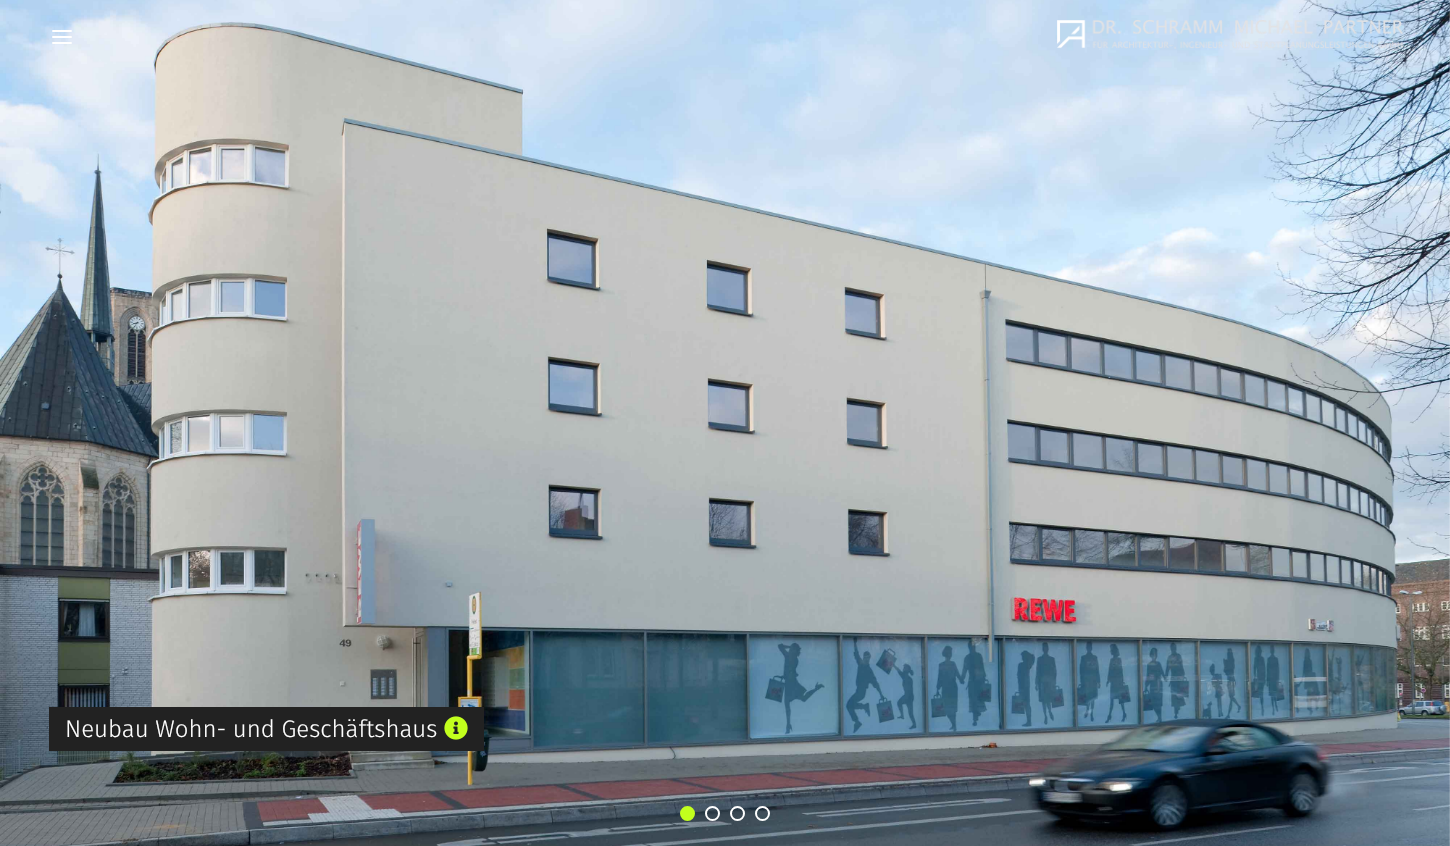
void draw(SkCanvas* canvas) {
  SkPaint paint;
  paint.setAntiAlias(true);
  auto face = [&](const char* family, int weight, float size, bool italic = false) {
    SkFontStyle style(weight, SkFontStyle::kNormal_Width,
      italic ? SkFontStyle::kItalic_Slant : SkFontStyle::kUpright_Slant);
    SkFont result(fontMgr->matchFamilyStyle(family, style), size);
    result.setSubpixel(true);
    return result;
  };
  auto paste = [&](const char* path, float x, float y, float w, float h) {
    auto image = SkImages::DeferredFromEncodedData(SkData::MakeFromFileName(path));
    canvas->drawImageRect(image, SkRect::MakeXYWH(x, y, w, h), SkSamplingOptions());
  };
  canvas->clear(0xffffffff);
  paste("img/2.png", 0, 0, 1450, 846);
  paint.setColor(0xffffffff);
  canvas->drawRoundRect(SkRect::MakeXYWH(52, 30, 20, 2), 1, 1, paint);
  canvas->drawRoundRect(SkRect::MakeXYWH(52, 36, 20, 2), 1, 1, paint);
  canvas->drawRoundRect(SkRect::MakeXYWH(52, 42, 20, 2), 1, 1, paint);
  paste("img/1.png", 1057, 20, 346, 29);
  paint.setColor(0xffc2ff1d);
  canvas->drawCircle(687.5f, 813.5f, 6.5f, paint);
  paint.setStroke(true);
  paint.setStrokeWidth(2);
  canvas->drawCircle(687.5f, 813.5f, 6.5f, paint);
  paint.setColor(0xffffffff);
  canvas->drawCircle(712.5f, 813.5f, 6.5f, paint);
  canvas->drawCircle(737.5f, 813.5f, 6.5f, paint);
  canvas->drawCircle(762.5f, 813.5f, 6.5f, paint);
  paint.setStroke(false);
  paint.setColor(0xff222222);
  canvas->drawRect(SkRect::MakeXYWH(49, 707, 435, 44), paint);
  paste("img/3.png", 444, 716, 24, 24);
  auto f0 = face("Fira Sans", 300, 24);
  paint.setColor(0xffffffff);
  canvas->drawString("Neubau Wohn- und Geschäftshaus", 65, 737, f0, paint);
}
